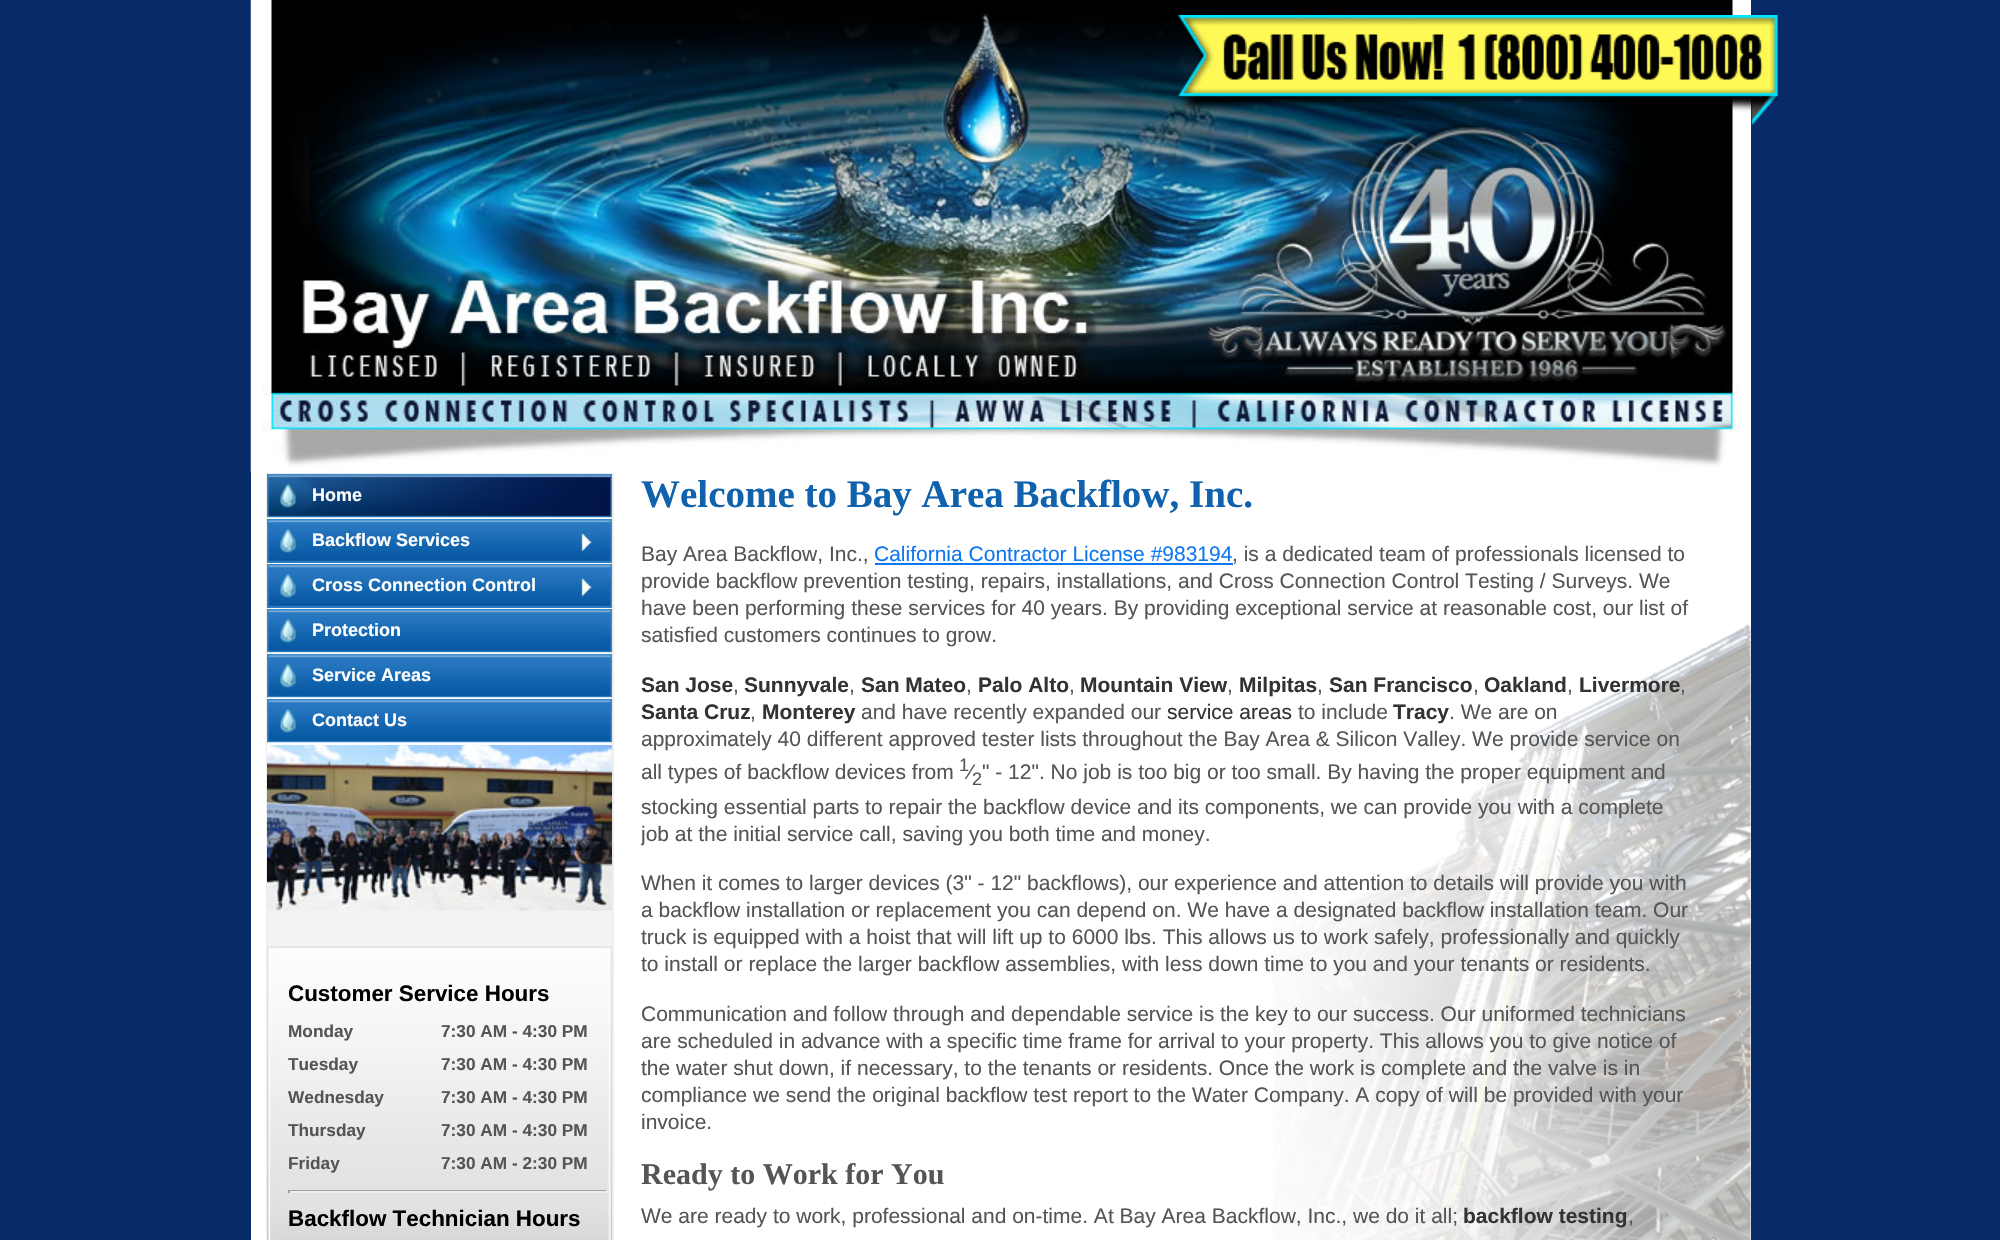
void draw(SkCanvas* canvas) {
  SkPaint paint;
  paint.setAntiAlias(true);
  auto face = [&](const char* family, int weight, float size, bool italic = false) {
    SkFontStyle style(weight, SkFontStyle::kNormal_Width,
      italic ? SkFontStyle::kItalic_Slant : SkFontStyle::kUpright_Slant);
    SkFont result(fontMgr->matchFamilyStyle(family, style), size);
    result.setSubpixel(true);
    return result;
  };
  auto paste = [&](const char* path, float x, float y, float w, float h) {
    auto image = SkImages::DeferredFromEncodedData(SkData::MakeFromFileName(path));
    canvas->drawImageRect(image, SkRect::MakeXYWH(x, y, w, h), SkSamplingOptions());
  };
  canvas->clear(0xff072b69);
  paint.setColor(0xffffffff);
  canvas->drawRect(SkRect::MakeXYWH(251, 0, 1500, 1240), paint);
  paste("img/1.png", 1273, 624, 478, 616);
  paste("img/2.png", 250, 0, 1489, 473);
  paste("img/3.png", 1177, 15, 601, 110);
  paint.setStroke(true);
  paint.setStrokeWidth(2);
  paint.setColor(0xffeeeeee);
  canvas->drawRect(SkRect::MakeXYWH(267, 474, 346, 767), paint);
  paint.setStroke(false);
  paint.setColor(0xffffffff);
  canvas->drawRect(SkRect::MakeXYWH(267, 518, 1, 1), paint);
  paste("img/4.png", 267, 474, 345, 44);
  paint.setColor(0xff2272bb);
  canvas->drawRect(SkRect::MakeXYWH(267, 562, 345, 1), paint);
  paste("img/5.png", 267, 519, 345, 44);
  paint.setColor(0xffffffff);
  canvas->drawRect(SkRect::MakeXYWH(267, 563, 1, 1), paint);
  paint.setColor(0xff2272bb);
  canvas->drawRect(SkRect::MakeXYWH(267, 607, 345, 1), paint);
  paste("img/5.png", 267, 564, 345, 44);
  paint.setColor(0xffffffff);
  canvas->drawRect(SkRect::MakeXYWH(267, 608, 1, 1), paint);
  canvas->drawRect(SkRect::MakeXYWH(267, 653, 1, 1), paint);
  paste("img/6.png", 267, 609, 345, 44);
  canvas->drawRect(SkRect::MakeXYWH(267, 698, 1, 1), paint);
  paste("img/6.png", 267, 654, 345, 44);
  canvas->drawRect(SkRect::MakeXYWH(267, 743, 1, 2), paint);
  paste("img/6.png", 267, 699, 345, 44);
  paint.setColor(0xfff3f3f3);
  canvas->drawRect(SkRect::MakeXYWH(267, 910, 345, 37), paint);
  paste("img/7.png", 267, 745, 345, 166);
  paste("img/8.png", 267, 946, 345, 1);
  paste("img/9.png", 267, 946, 345, 294);
  {
    const struct { float x, y, w, h; SkColor color; } items[] = {
      {288, 1190, 320, 1, 0xff9f9f9f},
      {606, 1190, 2, 3, 0xffeeeeee},
      {288, 1191, 320, 2, 0xffeeeeee},
      {288, 1190, 2, 3, 0xff9f9f9f},
      {875, 563, 358, 2, 0xff0e78f1},
    };
    for (auto [x, y, w, h, color] : items) {
      paint.setColor(color);
      canvas->drawRect(SkRect::MakeXYWH(x, y, w, h), paint);
    }
  }
  auto f0 = face("Liberation Sans", 700, 18);
  paint.setColor(0xffffffff);
  {
    const struct { const char* s; float x, y; } items[] = {
      {"Home", 312, 501},
      {"Backflow Services", 312, 546},
      {"Cross Connection Control", 312, 591},
      {"Protection", 312, 636},
      {"Service Areas", 312, 681},
      {"Contact Us", 312, 726},
    };
    for (auto [s, x, y] : items) {
      canvas->drawString(s, x, y, f0, paint);
    }
  }
  auto f1 = face("Liberation Sans", 700, 22.4f);
  paint.setColor(0xff000000);
  canvas->drawString("Customer Service Hours", 288, 1001, f1, paint);
  auto f2 = face("Liberation Sans", 700, 17.25f);
  paint.setColor(0xff555555);
  {
    const struct { const char* s; float x, y; } items[] = {
      {"Monday", 288, 1037},
      {"7:30 AM - 4:30 PM", 441, 1037},
      {"Tuesday", 288, 1070},
      {"7:30 AM - 4:30 PM", 441, 1070},
      {"Wednesday", 288, 1103},
      {"7:30 AM - 4:30 PM", 441, 1103},
      {"Thursday", 288, 1136},
      {"7:30 AM - 4:30 PM", 441, 1136},
      {"Friday", 288, 1169},
      {"7:30 AM - 2:30 PM", 441, 1169},
    };
    for (auto [s, x, y] : items) {
      canvas->drawString(s, x, y, f2, paint);
    }
  }
  paint.setColor(0xff000000);
  canvas->drawString("Backflow Technician Hours", 288, 1226, f1, paint);
  auto f3 = face("Liberation Serif", 700, 39);
  paint.setColor(0xff1162ac);
  canvas->drawString("Welcome to Bay Area Backflow, Inc.", 641, 507, f3, paint);
  auto f4 = face("Liberation Sans", 400, 21);
  paint.setColor(0xff555555);
  canvas->drawString("Bay Area Backflow, Inc.,", 641, 561, f4, paint);
  paint.setColor(0xff0e78f1);
  canvas->drawString("California Contractor License #983194", 874, 561, f4, paint);
  paint.setColor(0xff555555);
  {
    const struct { const char* s; float x, y; } items[] = {
      {", is a dedicated team of professionals licensed to", 1232, 561},
      {"provide backflow prevention testing, repairs, installations, and Cross Connection Control Testing / Surveys. We", 641, 588},
      {"have been performing these services for 40 years. By providing exceptional service at reasonable cost, our list of", 641, 615},
      {"satisfied customers continues to grow.", 641, 642},
    };
    for (auto [s, x, y] : items) {
      canvas->drawString(s, x, y, f4, paint);
    }
  }
  auto f5 = face("Liberation Sans", 700, 21);
  paint.setColor(0xff333333);
  canvas->drawString("San Jose", 641, 692, f5, paint);
  paint.setColor(0xff555555);
  canvas->drawString(",", 733, 692, f4, paint);
  paint.setColor(0xff333333);
  canvas->drawString("Sunnyvale", 744, 692, f5, paint);
  paint.setColor(0xff555555);
  canvas->drawString(",", 849, 692, f4, paint);
  paint.setColor(0xff333333);
  canvas->drawString("San Mateo", 861, 692, f5, paint);
  paint.setColor(0xff555555);
  canvas->drawString(",", 966, 692, f4, paint);
  paint.setColor(0xff333333);
  canvas->drawString("Palo Alto", 978, 692, f5, paint);
  paint.setColor(0xff555555);
  canvas->drawString(",", 1069, 692, f4, paint);
  paint.setColor(0xff333333);
  canvas->drawString("Mountain View", 1080, 692, f5, paint);
  paint.setColor(0xff555555);
  canvas->drawString(",", 1227, 692, f4, paint);
  paint.setColor(0xff333333);
  canvas->drawString("Milpitas", 1239, 692, f5, paint);
  paint.setColor(0xff555555);
  canvas->drawString(",", 1317, 692, f4, paint);
  paint.setColor(0xff333333);
  canvas->drawString("San Francisco", 1329, 692, f5, paint);
  paint.setColor(0xff555555);
  canvas->drawString(",", 1473, 692, f4, paint);
  paint.setColor(0xff333333);
  canvas->drawString("Oakland", 1484, 692, f5, paint);
  paint.setColor(0xff555555);
  canvas->drawString(",", 1567, 692, f4, paint);
  paint.setColor(0xff333333);
  canvas->drawString("Livermore", 1579, 692, f5, paint);
  paint.setColor(0xff555555);
  canvas->drawString(",", 1680, 692, f4, paint);
  paint.setColor(0xff333333);
  canvas->drawString("Santa Cruz", 641, 719, f5, paint);
  paint.setColor(0xff555555);
  canvas->drawString(",", 750, 719, f4, paint);
  paint.setColor(0xff333333);
  canvas->drawString("Monterey", 762, 719, f5, paint);
  paint.setColor(0xff555555);
  canvas->drawString("and have recently expanded our", 861, 719, f4, paint);
  paint.setColor(0xff333333);
  canvas->drawString("service areas", 1167, 719, f4, paint);
  paint.setColor(0xff555555);
  canvas->drawString("to include", 1298, 719, f4, paint);
  paint.setColor(0xff333333);
  canvas->drawString("Tracy", 1393, 719, f5, paint);
  paint.setColor(0xff555555);
  {
    const struct { const char* s; float x, y; } items[] = {
      {". We are on", 1449, 719},
      {"approximately 40 different approved tester lists throughout the Bay Area & Silicon Valley. We provide service on", 641, 746},
      {"all types of backflow devices from", 641, 779},
    };
    for (auto [s, x, y] : items) {
      canvas->drawString(s, x, y, f4, paint);
    }
  }
  auto f6 = face("Liberation Sans", 400, 18);
  canvas->drawString("1", 959, 771, f6, paint);
  canvas->drawString("\" - 12\". No job is too big or too small. By having the proper equipment and", 982, 779, f4, paint);
  canvas->drawString("⁄", 969, 779, f4, paint);
  canvas->drawString("2", 972, 785, f6, paint);
  canvas->drawString("stocking essential parts to repair the backflow device and its components, we can provide you with a complete", 641, 814, f4, paint);
  canvas->save();
  canvas->clipRect(SkRect::MakeXYWH(641, 473, 1080, 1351));
  canvas->drawString("job at the initial service call, saving you both time and money.", 641, 841, f4, paint);
  canvas->restore();
  {
    const struct { const char* s; float x, y; } items[] = {
      {"When it comes to larger devices (3\" - 12\" backflows), our experience and attention to details will provide you with", 641, 890},
      {"a backflow installation or replacement you can depend on. We have a designated backflow installation team. Our", 641, 917},
      {"truck is equipped with a hoist that will lift up to 6000 lbs. This allows us to work safely, professionally and quickly", 641, 944},
      {"to install or replace the larger backflow assemblies, with less down time to you and your tenants or residents.", 641, 971},
      {"Communication and follow through and dependable service is the key to our success. Our uniformed technicians", 641, 1021},
      {"are scheduled in advance with a specific time frame for arrival to your property. This allows you to give notice of", 641, 1048},
      {"the water shut down, if necessary, to the tenants or residents. Once the work is complete and the valve is in", 641, 1075},
      {"compliance we send the original backflow test report to the Water Company. A copy of will be provided with your", 641, 1102},
      {"invoice.", 641, 1129},
    };
    for (auto [s, x, y] : items) {
      canvas->drawString(s, x, y, f4, paint);
    }
  }
  auto f7 = face("Liberation Serif", 700, 30);
  canvas->drawString("Ready to Work for You", 641, 1184, f7, paint);
  canvas->drawString("We are ready to work, professional and on-time. At Bay Area Backflow, Inc., we do it all;", 641, 1223, f4, paint);
  paint.setColor(0xff333333);
  canvas->drawString("backflow testing", 1463, 1223, f5, paint);
  paint.setColor(0xff555555);
  canvas->drawString(",", 1628, 1223, f4, paint);
}
